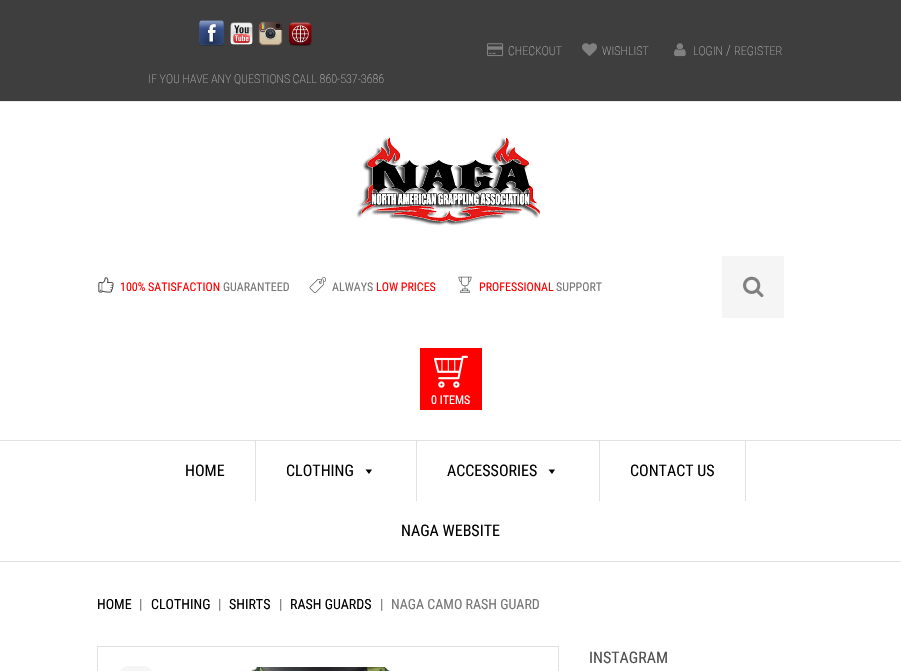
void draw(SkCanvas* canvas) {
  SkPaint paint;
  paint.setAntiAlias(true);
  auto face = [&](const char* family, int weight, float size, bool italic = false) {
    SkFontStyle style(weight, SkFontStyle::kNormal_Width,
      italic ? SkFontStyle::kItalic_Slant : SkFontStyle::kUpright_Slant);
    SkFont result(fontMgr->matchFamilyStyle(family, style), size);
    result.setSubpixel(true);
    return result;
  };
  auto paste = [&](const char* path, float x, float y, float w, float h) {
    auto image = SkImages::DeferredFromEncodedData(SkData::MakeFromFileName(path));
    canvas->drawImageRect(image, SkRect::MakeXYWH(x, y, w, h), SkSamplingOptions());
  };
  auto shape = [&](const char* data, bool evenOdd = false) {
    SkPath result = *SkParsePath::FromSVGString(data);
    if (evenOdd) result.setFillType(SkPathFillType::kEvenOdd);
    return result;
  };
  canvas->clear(0xffffffff);
  paint.setColor(0xff3e3e3e);
  canvas->drawRect(SkRect::MakeXYWH(0, 0, 901, 101), paint);
  paint.setColor(0xffebebeb);
  canvas->drawRect(SkRect::MakeXYWH(0, 101, 901, 1), paint);
  paste("img/1.png", 487, 43, 17, 14);
  paste("img/2.png", 582, 43, 15, 13);
  paste("img/3.png", 674, 43, 12, 14);
  paste("img/4.png", 199, 20, 25, 26);
  paste("img/5.png", 230, 22, 23, 23);
  paste("img/6.png", 258, 21, 25, 25);
  paste("img/7.png", 289, 22, 23, 24);
  paste("img/8.png", 356, 137, 184, 89);
  paste("img/9.png", 98, 277, 16, 16);
  paste("img/10.png", 309, 277, 17, 17);
  paste("img/11.png", 458, 276, 14, 17);
  paint.setColor(0xfff5f5f5);
  canvas->drawRect(SkRect::MakeXYWH(722, 256, 62, 62), paint);
  paste("img/12.png", 743, 276, 21, 22);
  paint.setColor(0xffff0000);
  canvas->drawRect(SkRect::MakeXYWH(420, 348, 62, 62), paint);
  paste("img/13.png", 434, 355, 34, 33);
  {
    const struct { float x, y, w, h; SkColor color; } items[] = {
      {0, 440, 901, 1, 0xffe1e1e1},
      {0, 561, 901, 1, 0xffe1e1e1},
      {255, 441, 1, 60, 0xffe1e1e1},
      {416, 441, 1, 60, 0xffe1e1e1},
    };
    for (auto [x, y, w, h, color] : items) {
      paint.setColor(color);
      canvas->drawRect(SkRect::MakeXYWH(x, y, w, h), paint);
    }
  }
  paint.setColor(0xff000000);
  canvas->drawPath(shape("M372 469.5L369 474L365.5 469.5Z"), paint);
  paint.setColor(0xffe1e1e1);
  canvas->drawRect(SkRect::MakeXYWH(599, 441, 1, 60), paint);
  paint.setColor(0xff000000);
  canvas->drawPath(shape("M555 469.5L552 474L548.5 469.5Z"), paint);
  paint.setColor(0xffe1e1e1);
  canvas->drawRect(SkRect::MakeXYWH(745, 441, 1, 60), paint);
  paint.setStroke(true);
  paint.setStrokeWidth(1);
  canvas->drawRect(SkRect::MakeXYWH(97.5f, 646.5f, 461, 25), paint);
  paste("img/14.png", 251, 667, 140, 4);
  paint.setStroke(false);
  paint.setColor(0xfff5f5f5);
  canvas->drawRoundRect(SkRect::MakeXYWH(117, 666, 38, 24), 19, 19, paint);
  auto f0 = face("Roboto Condensed", 100, 12);
  paint.setColor(0xffc2c2c2);
  {
    const struct { const char* s; float x, y; } items[] = {
      {"CHECKOUT", 508, 55},
      {"WISHLIST", 602, 55},
      {"LOGIN", 693, 55},
    };
    for (auto [s, x, y] : items) {
      canvas->drawString(s, x, y, f0, paint);
    }
  }
  auto f1 = face("Roboto Condensed", 100, 14);
  canvas->drawString("/", 726, 55, f1, paint);
  canvas->drawString("REGISTER", 734, 55, f0, paint);
  canvas->drawString("IF YOU HAVE ANY QUESTIONS CALL 860-537-3686", 148, 83, f0, paint);
  auto f2 = face("Roboto Condensed", 400, 12);
  paint.setColor(0xffff0000);
  canvas->drawString("100% SATISFACTION", 120, 291, f2, paint);
  paint.setColor(0xff767676);
  canvas->drawString("GUARANTEED", 223, 291, f2, paint);
  canvas->drawString("ALWAYS", 332, 291, f2, paint);
  paint.setColor(0xffff0000);
  canvas->drawString("LOW PRICES", 376, 291, f2, paint);
  canvas->drawString("PROFESSIONAL", 479, 291, f2, paint);
  paint.setColor(0xff767676);
  canvas->drawString("SUPPORT", 556, 291, f2, paint);
  paint.setColor(0xffffffff);
  canvas->drawString("0 ITEMS", 431, 404, f2, paint);
  auto f3 = face("Roboto Condensed", 400, 16);
  paint.setColor(0xff000000);
  {
    const struct { const char* s; float x, y; } items[] = {
      {"HOME", 185, 476},
      {"CLOTHING", 286, 476},
      {"ACCESSORIES", 447, 476},
      {"CONTACT US", 630, 476},
      {"NAGA WEBSITE", 401, 536},
    };
    for (auto [s, x, y] : items) {
      canvas->drawString(s, x, y, f3, paint);
    }
  }
  auto f4 = face("Roboto Condensed", 400, 14);
  canvas->drawString("HOME", 97, 609, f4, paint);
  paint.setColor(0xff767676);
  canvas->drawString("|", 139, 609, f4, paint);
  paint.setColor(0xff000000);
  canvas->drawString("CLOTHING", 151, 609, f4, paint);
  paint.setColor(0xff767676);
  canvas->drawString("|", 218, 609, f4, paint);
  paint.setColor(0xff000000);
  canvas->drawString("SHIRTS", 229, 609, f4, paint);
  paint.setColor(0xff767676);
  canvas->drawString("|", 279, 609, f4, paint);
  paint.setColor(0xff000000);
  canvas->drawString("RASH GUARDS", 290, 609, f4, paint);
  paint.setColor(0xff767676);
  canvas->drawString("|", 380, 609, f4, paint);
  canvas->drawString("NAGA CAMO RASH GUARD", 391, 609, f4, paint);
  paint.setColor(0xff4e4e4e);
  canvas->drawString("INSTAGRAM", 589, 663, f3, paint);
}
